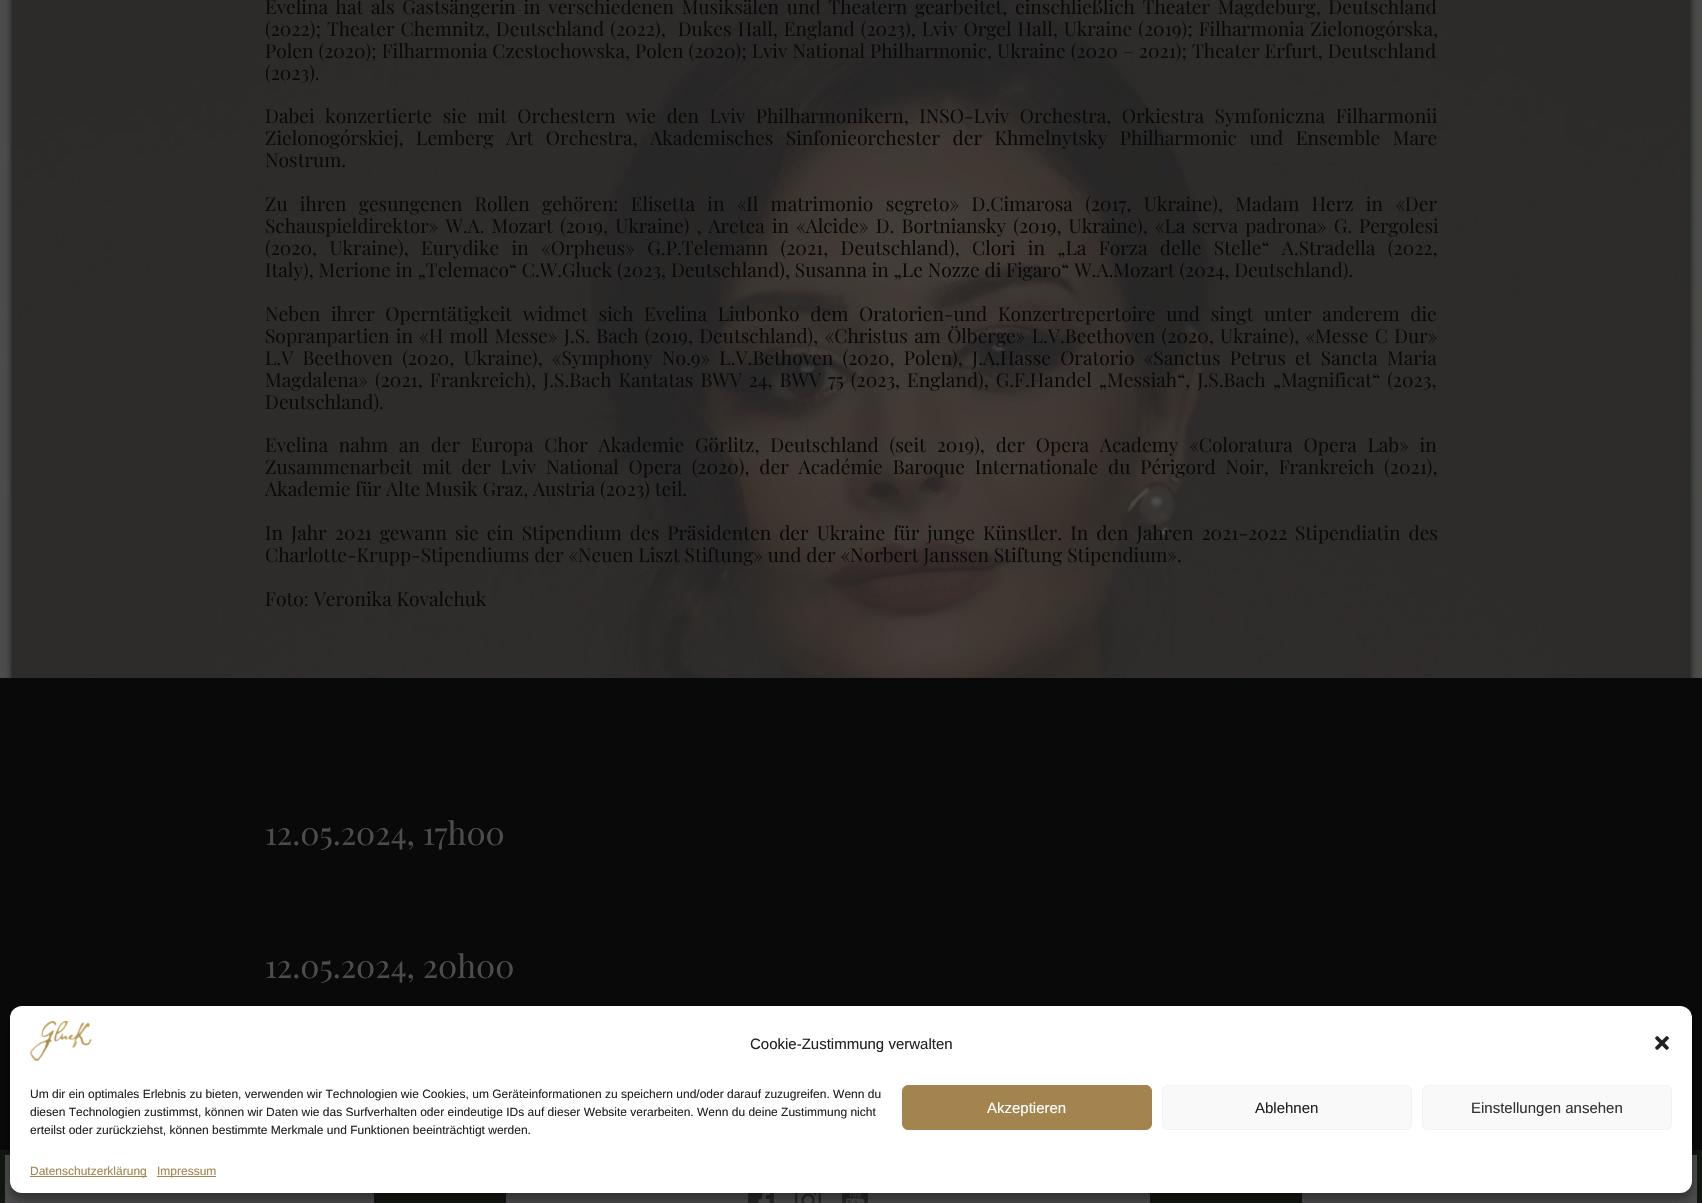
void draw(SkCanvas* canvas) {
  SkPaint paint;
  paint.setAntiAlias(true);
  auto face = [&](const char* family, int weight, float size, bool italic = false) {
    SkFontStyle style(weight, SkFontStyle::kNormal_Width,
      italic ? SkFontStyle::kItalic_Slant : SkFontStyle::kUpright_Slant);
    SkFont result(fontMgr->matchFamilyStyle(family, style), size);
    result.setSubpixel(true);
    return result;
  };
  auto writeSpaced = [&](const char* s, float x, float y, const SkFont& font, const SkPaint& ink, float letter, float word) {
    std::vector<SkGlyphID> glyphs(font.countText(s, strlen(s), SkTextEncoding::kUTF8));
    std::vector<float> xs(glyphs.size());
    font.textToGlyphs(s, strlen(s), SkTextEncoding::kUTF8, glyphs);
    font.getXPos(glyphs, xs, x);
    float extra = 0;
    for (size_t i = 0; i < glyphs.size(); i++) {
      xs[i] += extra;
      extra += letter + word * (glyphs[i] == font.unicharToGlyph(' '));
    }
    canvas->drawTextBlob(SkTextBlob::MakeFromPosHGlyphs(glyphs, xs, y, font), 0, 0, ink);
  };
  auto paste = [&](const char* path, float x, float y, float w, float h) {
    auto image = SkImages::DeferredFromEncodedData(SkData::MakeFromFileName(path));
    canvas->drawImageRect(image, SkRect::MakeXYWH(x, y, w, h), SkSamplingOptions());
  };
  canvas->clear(0xff4d4d4d);
  paint.setColor(0xff090909);
  canvas->drawRect(SkRect::MakeXYWH(0, 678, 1702, 472), paint);
  paste("img/1.png", 0, 0, 1702, 678);
  paint.setStroke(true);
  paint.setStrokeWidth(5);
  paint.setColor(0xff121710);
  canvas->drawRect(SkRect::MakeXYWH(2.5f, 1152.5f, 1697, 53), paint);
  paint.setStroke(false);
  canvas->drawRect(SkRect::MakeXYWH(376, 1193, 128, 10), paint);
  paint.setStroke(true);
  paint.setStrokeWidth(2);
  canvas->drawRect(SkRect::MakeXYWH(375, 1186, 130, 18), paint);
  paste("img/2.png", 748, 1193, 26, 10);
  paste("img/3.png", 795, 1193, 26, 10);
  paste("img/4.png", 842, 1193, 26, 10);
  paint.setStroke(false);
  canvas->drawRect(SkRect::MakeXYWH(1152, 1193, 148, 10), paint);
  paint.setStroke(true);
  canvas->drawRect(SkRect::MakeXYWH(1151, 1186, 150, 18), paint);
  paint.setStroke(false);
  paint.setColor(0x3b000000);
  paint.setMaskFilter(SkMaskFilter::MakeBlur(kNormal_SkBlurStyle, 3));
  canvas->drawRoundRect(SkRect::MakeXYWH(10, 1012, 1682, 187), 12, 12, paint);
  paint.setMaskFilter(nullptr);
  paint.setColor(0x30000000);
  paint.setMaskFilter(SkMaskFilter::MakeBlur(kNormal_SkBlurStyle, 10));
  canvas->drawRoundRect(SkRect::MakeXYWH(10, 1016, 1682, 187), 12, 12, paint);
  paint.setMaskFilter(nullptr);
  paint.setColor(0xffffffff);
  canvas->drawRoundRect(SkRect::MakeXYWH(10, 1006, 1682, 187), 12, 12, paint);
  paste("img/5.png", 30, 1021, 62, 40);
  paste("img/6.png", 1655, 1036, 14, 14);
  paint.setColor(0xffa3844e);
  canvas->drawRoundRect(SkRect::MakeXYWH(902.5f, 1085.5f, 249, 44), 5.5f, 5.5f, paint);
  paint.setStroke(true);
  paint.setStrokeWidth(1);
  canvas->drawRoundRect(SkRect::MakeXYWH(902.5f, 1085.5f, 249, 44), 5.5f, 5.5f, paint);
  paint.setStroke(false);
  paint.setColor(0xfff9f9f9);
  canvas->drawRoundRect(SkRect::MakeXYWH(1162.5f, 1085.5f, 249, 44), 5.5f, 5.5f, paint);
  paint.setStroke(true);
  paint.setColor(0xfff2f2f2);
  canvas->drawRoundRect(SkRect::MakeXYWH(1162.5f, 1085.5f, 249, 44), 5.5f, 5.5f, paint);
  paint.setStroke(false);
  paint.setColor(0xfff9f9f9);
  canvas->drawRoundRect(SkRect::MakeXYWH(1422.5f, 1085.5f, 249, 44), 5.5f, 5.5f, paint);
  paint.setStroke(true);
  paint.setColor(0xfff2f2f2);
  canvas->drawRoundRect(SkRect::MakeXYWH(1422.5f, 1085.5f, 249, 44), 5.5f, 5.5f, paint);
  paint.setStroke(false);
  paint.setColor(0xffa3844e);
  canvas->drawRect(SkRect::MakeXYWH(30, 1176, 117, 1), paint);
  canvas->drawRect(SkRect::MakeXYWH(157, 1176, 59, 1), paint);
  auto f0 = face("Playfair Display", 400, 19.2f);
  paint.setColor(0xff090909);
  writeSpaced("Evelina hat als Gastsängerin in verschiedenen Musiksälen und Theatern gearbeitet, einschließlich Theater Magdeburg, Deutschland", 265, 14, f0, paint, 0, 2.9f);
  writeSpaced("(2022); Theater Chemnitz, Deutschland (2022),  Dukes Hall, England (2023), Lviv Orgel Hall, Ukraine (2019); Filharmonia Zielonogórska,", 265, 36, f0, paint, 0, 1.25f);
  writeSpaced("Polen (2020); Filharmonia Czestochowska, Polen (2020); Lviv National Philharmonic, Ukraine (2020 – 2021); Theater Erfurt, Deutschland", 265, 58, f0, paint, 0, 0.25f);
  canvas->drawString("(2023).", 265, 80, f0, paint);
  writeSpaced("Dabei konzertierte sie mit Orchestern wie den Lviv Philharmonikern, INSO-Lviv Orchestra, Orkiestra Symfoniczna Filharmonii", 265, 123, f0, paint, 0, 5.75f);
  writeSpaced("Zielonogórskiej, Lemberg Art Orchestra, Akademisches Sinfonieorchester der Khmelnytsky Philharmonic und Ensemble Mare", 265, 145, f0, paint, 0, 7.75f);
  canvas->drawString("Nostrum.", 265, 167, f0, paint);
  writeSpaced("Zu ihren gesungenen Rollen gehören: Elisetta in «Il matrimonio segreto» D.Cimarosa (2017, Ukraine), Madam Herz in «Der", 265, 211, f0, paint, 0, 7.5f);
  writeSpaced("Schauspieldirektor» W.A. Mozart (2019, Ukraine) , Aretea in «Alcide» D. Bortniansky (2019, Ukraine), «La serva padrona» G. Pergolesi", 265, 233, f0, paint, 0, 2.25f);
  writeSpaced("(2020, Ukraine), Eurydike in «Orpheus» G.P.Telemann (2021, Deutschland), Clori in „La Forza delle Stelle“ A.Stradella (2022,", 265, 255, f0, paint, 0, 7.6f);
  canvas->drawString("Italy), Merione in „Telemaco“ C.W.Gluck (2023, Deutschland), Susanna in „Le Nozze di Figaro“ W.A.Mozart (2024, Deutschland).", 265, 277, f0, paint);
  writeSpaced("Neben ihrer Operntätigkeit widmet sich Evelina Liubonko dem Oratorien-und Konzertrepertoire und singt unter anderem die", 265, 321, f0, paint, 0, 5.9f);
  writeSpaced("Sopranpartien in «H moll Messe» J.S. Bach (2019, Deutschland), «Christus am Ölberge» L.V.Beethoven (2020, Ukraine), «Messe C Dur»", 265, 343, f0, paint, 0, 1.5f);
  writeSpaced("L.V Beethoven (2020, Ukraine), «Symphony No.9» L.V.Bethoven (2020, Polen), J.A.Hasse Oratorio «Sanctus Petrus et Sancta Maria", 265, 365, f0, paint, 0, 4.4f);
  writeSpaced("Magdalena» (2021, Frankreich), J.S.Bach Kantatas BWV 24, BWV 75 (2023, England), G.F.Handel „Messiah“, J.S.Bach „Magnificat“ (2023,", 265, 387, f0, paint, 0, 2.25f);
  canvas->drawString("Deutschland).", 265, 409, f0, paint);
  writeSpaced("Evelina nahm an der Europa Chor Akademie Görlitz, Deutschland (seit 2019), der Opera Academy «Coloratura Opera Lab» in", 265, 452, f0, paint, 0, 6);
  writeSpaced("Zusammenarbeit mit der Lviv National Opera (2020), der Académie Baroque Internationale du Périgord Noir, Frankreich (2021),", 265, 474, f0, paint, 0, 5.1f);
  canvas->drawString("Akademie für Alte Musik Graz, Austria (2023) teil.", 265, 496, f0, paint);
  writeSpaced("In Jahr 2021 gewann sie ein Stipendium des Präsidenten der Ukraine für junge Künstler. In den Jahren 2021-2022 Stipendiatin des", 265, 540, f0, paint, 0, 3.25f);
  canvas->drawString("Charlotte-Krupp-Stipendiums der «Neuen Liszt Stiftung» und der «Norbert Janssen Stiftung Stipendium».", 265, 562, f0, paint);
  canvas->drawString("Foto: Veronika Kovalchuk", 265, 606, f0, paint);
  auto f1 = face("Playfair Display", 400, 32);
  paint.setColor(0xff4d4d4d);
  canvas->drawString("12.05.2024, 17h00", 265, 845, f1, paint);
  canvas->drawString("12.05.2024, 20h00", 265, 978, f1, paint);
  auto f2 = face("Liberation Sans", 400, 15);
  paint.setColor(0xff222222);
  canvas->drawString("Cookie-Zustimmung verwalten", 750, 1049, f2, paint);
  auto f3 = face("Liberation Sans", 400, 12);
  {
    const struct { const char* s; float x, y; } items[] = {
      {"Um dir ein optimales Erlebnis zu bieten, verwenden wir Technologien wie Cookies, um Geräteinformationen zu speichern und/oder darauf zuzugreifen. Wenn du", 30, 1098},
      {"diesen Technologien zustimmst, können wir Daten wie das Surfverhalten oder eindeutige IDs auf dieser Website verarbeiten. Wenn du deine Zustimmung nicht", 30, 1116},
      {"erteilst oder zurückziehst, können bestimmte Merkmale und Funktionen beeinträchtigt werden.", 30, 1134},
    };
    for (auto [s, x, y] : items) {
      canvas->drawString(s, x, y, f3, paint);
    }
  }
  paint.setColor(0xffffffff);
  canvas->drawString("Akzeptieren", 987, 1113, f2, paint);
  paint.setColor(0xff222222);
  canvas->drawString("Ablehnen", 1255, 1113, f2, paint);
  paint.setColor(0xff333333);
  canvas->drawString("Einstellungen ansehen", 1471, 1113, f2, paint);
  paint.setColor(0xffa3844e);
  canvas->drawString("Datenschutzerklärung", 30, 1175, f3, paint);
  canvas->drawString("Impressum", 157, 1175, f3, paint);
}
